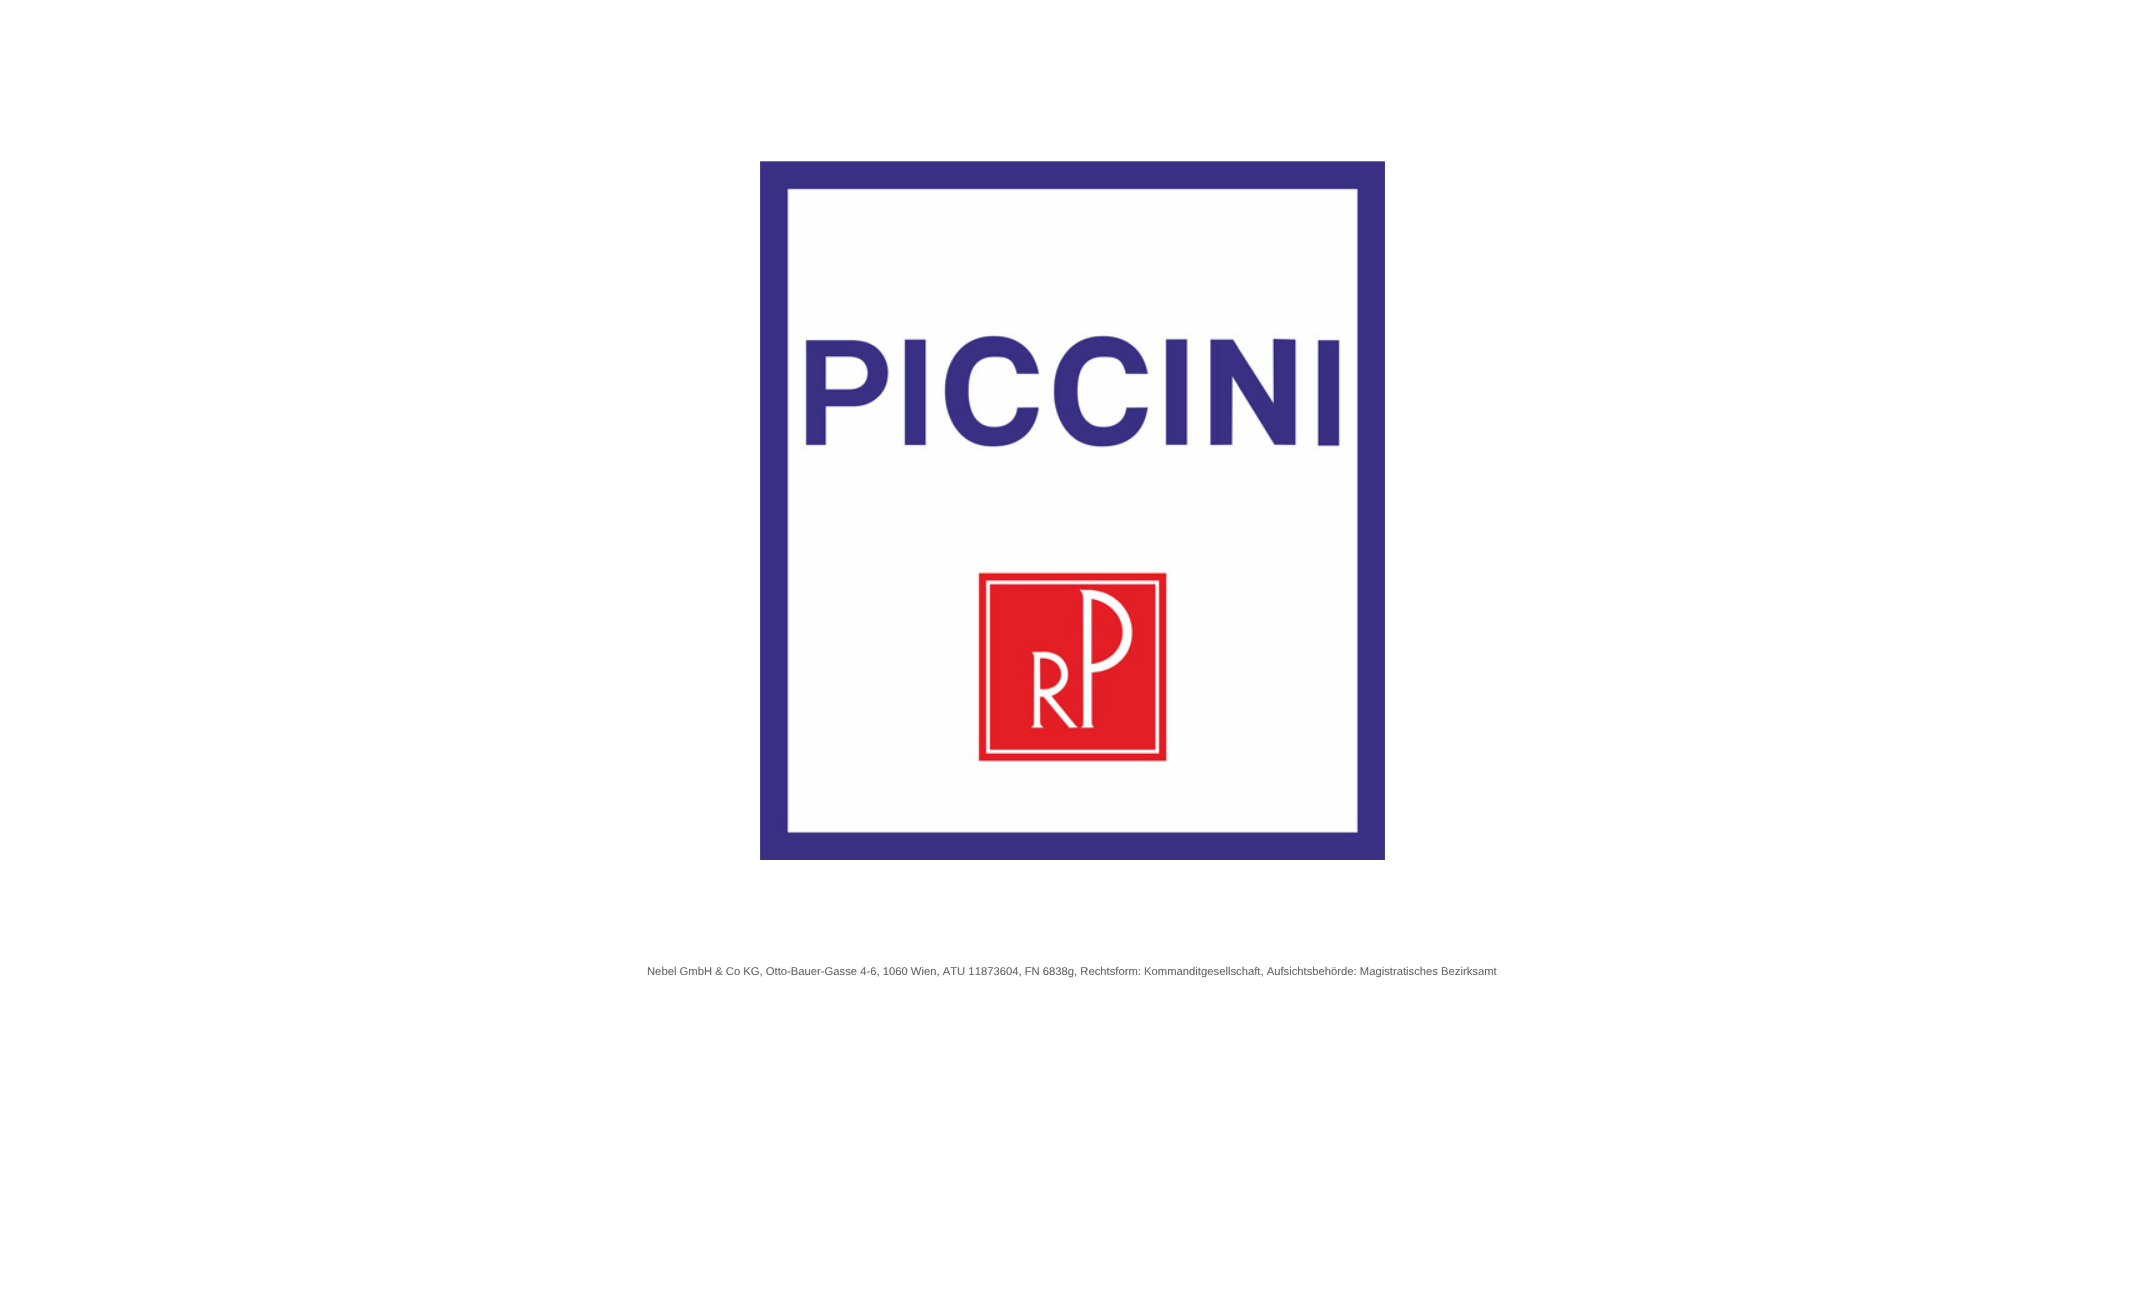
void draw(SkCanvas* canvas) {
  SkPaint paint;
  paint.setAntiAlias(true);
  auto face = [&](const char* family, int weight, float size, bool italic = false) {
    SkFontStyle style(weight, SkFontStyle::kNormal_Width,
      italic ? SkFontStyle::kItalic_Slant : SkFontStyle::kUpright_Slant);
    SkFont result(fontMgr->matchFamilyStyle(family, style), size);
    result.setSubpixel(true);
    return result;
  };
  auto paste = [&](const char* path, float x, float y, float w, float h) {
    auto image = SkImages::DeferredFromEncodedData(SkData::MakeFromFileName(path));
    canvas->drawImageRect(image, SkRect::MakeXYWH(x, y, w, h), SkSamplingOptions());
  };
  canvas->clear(0xffffffff);
  paste("img/1.png", 760, 161, 625, 699);
  auto f0 = face("Liberation Sans", 400, 11.25f);
  paint.setColor(0xff666666);
  canvas->drawString("Nebel GmbH & Co KG, Otto-Bauer-Gasse 4-6, 1060 Wien, ATU 11873604, FN 6838g, Rechtsform: Kommanditgesellschaft, Aufsichtsbehörde: Magistratisches Bezirksamt", 647, 975, f0, paint);
}
